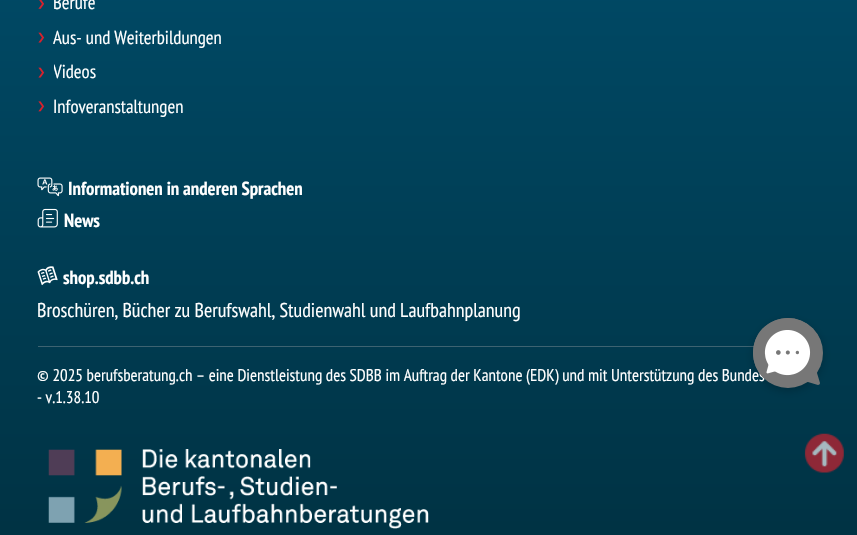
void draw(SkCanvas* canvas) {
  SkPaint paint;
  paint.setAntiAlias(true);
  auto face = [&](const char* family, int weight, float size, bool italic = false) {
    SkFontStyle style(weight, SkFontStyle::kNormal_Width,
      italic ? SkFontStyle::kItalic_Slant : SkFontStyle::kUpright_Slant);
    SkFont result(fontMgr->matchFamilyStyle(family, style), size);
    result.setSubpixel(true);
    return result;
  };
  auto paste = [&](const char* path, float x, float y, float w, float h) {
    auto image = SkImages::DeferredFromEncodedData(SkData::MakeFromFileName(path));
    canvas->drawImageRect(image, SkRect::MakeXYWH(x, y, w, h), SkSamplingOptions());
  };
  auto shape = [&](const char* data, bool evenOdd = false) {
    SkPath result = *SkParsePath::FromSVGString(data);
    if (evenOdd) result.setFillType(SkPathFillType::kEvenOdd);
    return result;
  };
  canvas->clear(0xffffffff);
  {
    const SkColor colors[] = {0xff004f6e, 0xff003040};
    const float stops[] = {0, 1};
    const SkPoint ends[] = {{429, -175}, {429, 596}};
    paint.setShader(SkGradientShader::MakeLinear(ends, colors, stops, 2, SkTileMode::kClamp));
    paint.setAlpha(255);
  }
  canvas->drawRect(SkRect::MakeXYWH(0, 0, 857, 535), paint);
  paste("img/1.png", 38, 0, 6, 9);
  paste("img/2.png", 38, 32, 7, 11);
  paste("img/3.png", 38, 67, 7, 11);
  paste("img/4.png", 38, 101, 7, 11);
  paste("img/5.png", 37, 177, 26, 20);
  paste("img/6.png", 37, 208, 21, 20);
  paste("img/7.png", 37, 266, 21, 20);
  paint.setShader(nullptr);
  paint.setColor(0xff3d6371);
  canvas->drawRect(SkRect::MakeXYWH(38, 346, 716, 1), paint);
  paste("img/8.png", 48, 449, 381, 80);
  paint.setColor(0x33000000);
  paint.setMaskFilter(SkMaskFilter::MakeBlur(kNormal_SkBlurStyle, 4));
  canvas->drawRoundRect(SkRect::MakeXYWH(753, 321, 70, 70), 35, 35, paint);
  paint.setMaskFilter(nullptr);
  paste("img/11.png", 804, 433, 40, 40);
  auto f0 = face("PT Sans Narrow", 400, 18.75f);
  paint.setColor(0xffffffff);
  canvas->drawString("Berufe", 53, 9, f0, paint);
  canvas->drawString("Aus- und Weiterbildungen", 53, 44, f0, paint);
  canvas->save();
  canvas->clipRect(SkRect::MakeXYWH(54, 61, 42, 23));
  canvas->drawString("Videos", 53, 78, f0, paint);
  canvas->restore();
  canvas->drawString("Infoveranstaltungen", 53, 113, f0, paint);
  auto f1 = face("PT Sans Narrow", 700, 18.75f);
  {
    const struct { const char* s; float x, y; } items[] = {
      {"Informationen in anderen Sprachen", 68, 195},
      {"News", 64, 227},
      {"shop.sdbb.ch", 63, 284},
    };
    for (auto [s, x, y] : items) {
      canvas->drawString(s, x, y, f1, paint);
    }
  }
  auto f2 = face("PT Sans Narrow", 400, 20);
  canvas->drawString("Broschüren, Bücher zu Berufswahl, Studienwahl und Laufbahnplanung", 37, 317, f2, paint);
  auto f3 = face("PT Sans Narrow", 400, 17);
  canvas->drawString("© 2025 berufsberatung.ch – eine Dienstleistung des SDBB im Auftrag der Kantone (EDK) und mit Unterstützung des Bundes", 37, 381, f3, paint);
  canvas->drawString("- v.1.38.10", 37, 403, f3, paint);
  paint.setColor(0xff777777);
  canvas->drawCircle(788, 353, 35, paint);
  canvas->drawPath(shape("M812 328C798 314 776 315 762 329C750 342 750 364 763 377C774 388 792 390 805 382C806 382 807 382 808 382L818 385C819 385 820 384 820 383L817 373C817 372 817 371 817 370C825 357 824 340 812 328Z"), paint);
  paste("img/9.png", 764, 330, 47, 46);
  paste("img/10.png", 776, 350, 23, 5);
}
